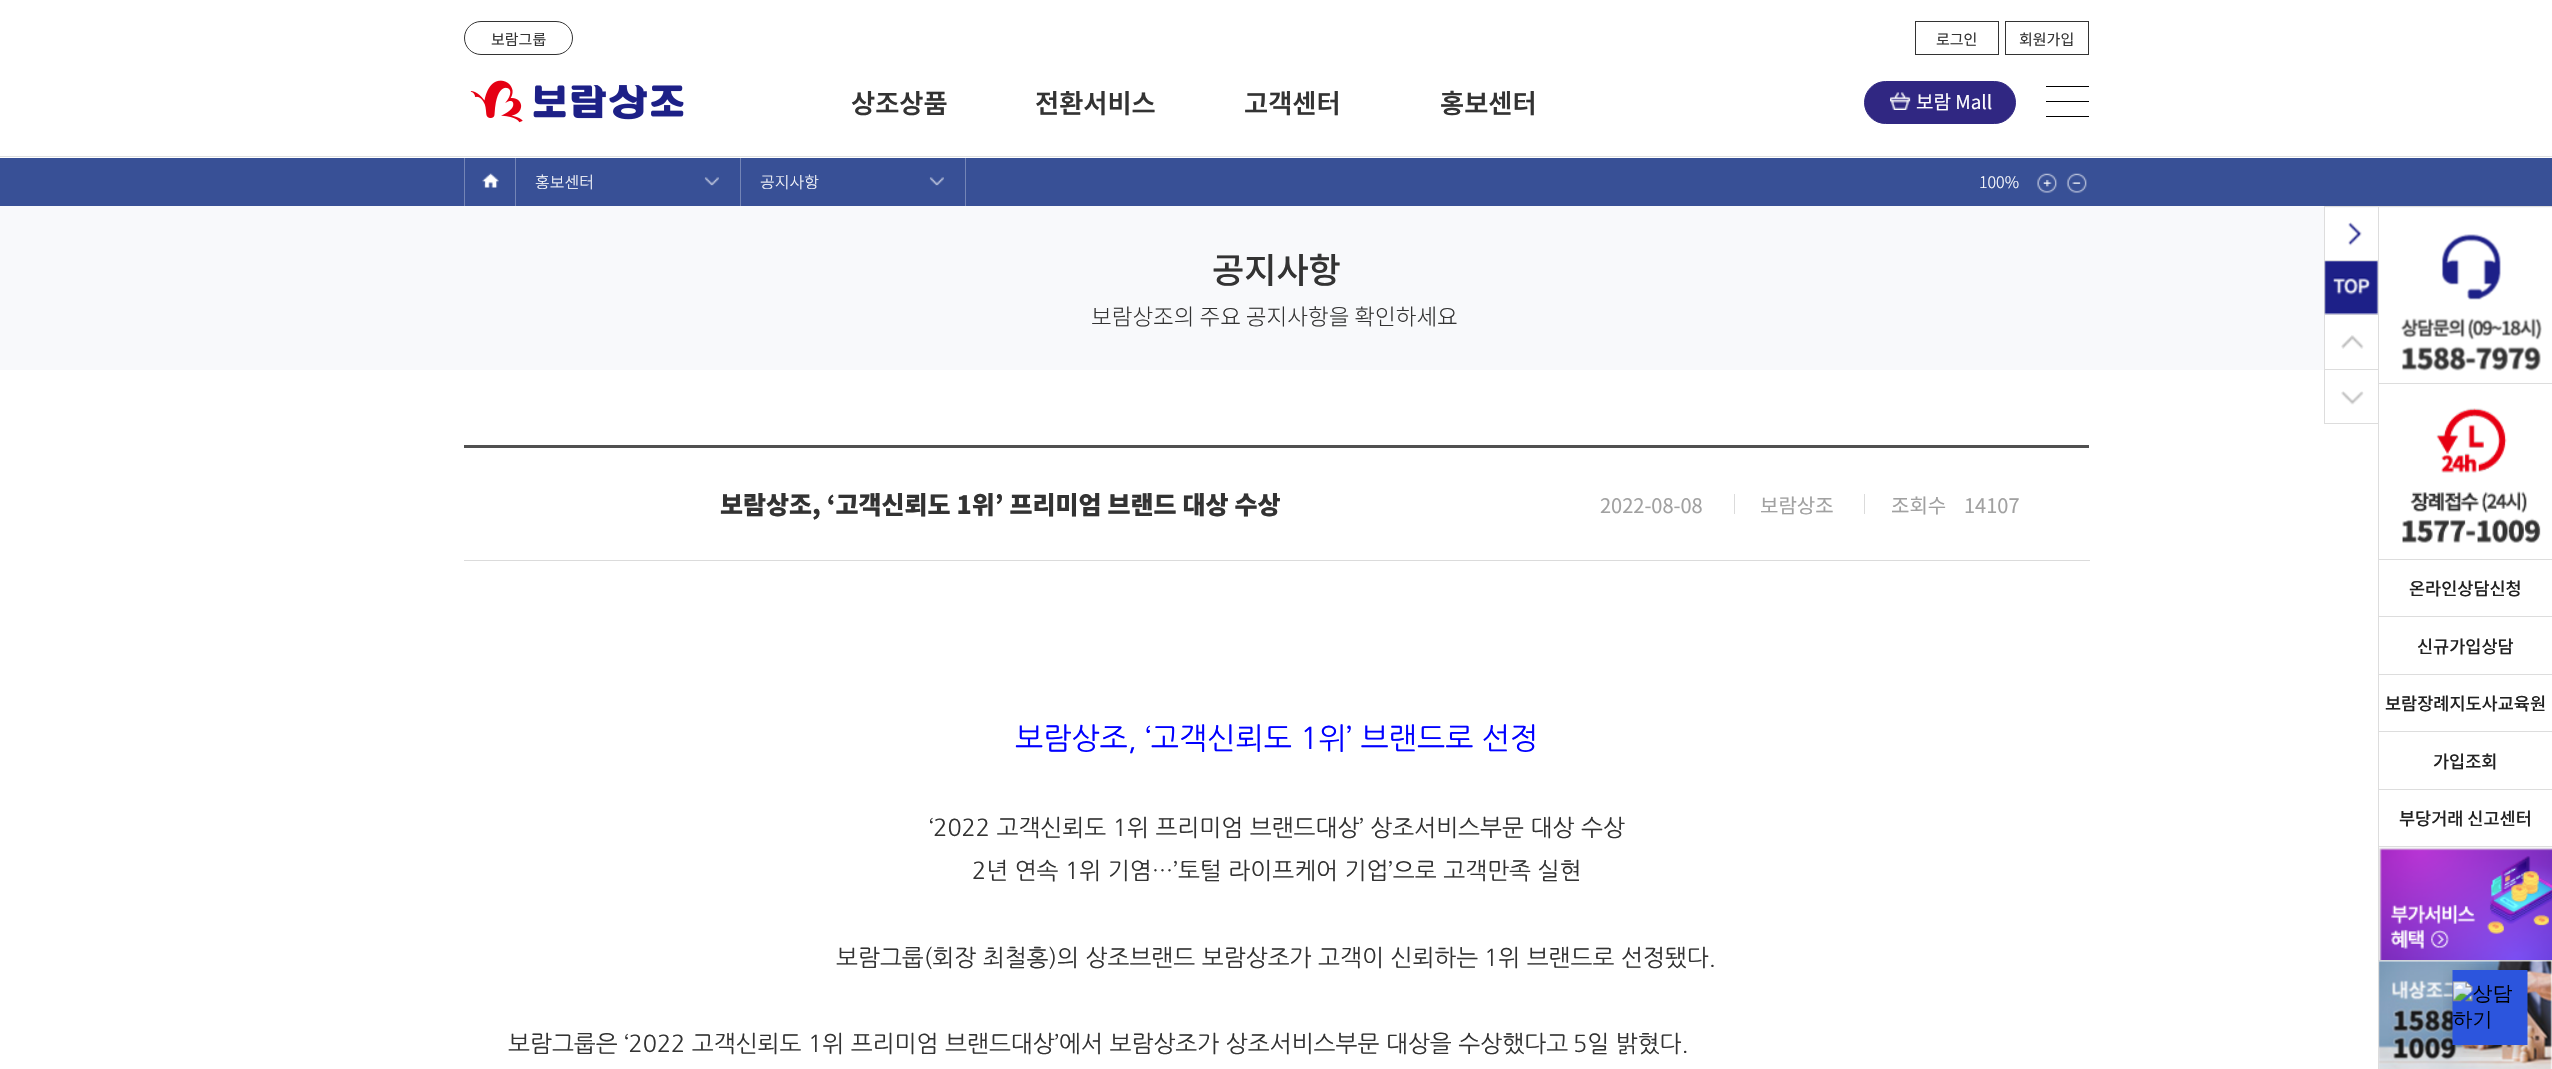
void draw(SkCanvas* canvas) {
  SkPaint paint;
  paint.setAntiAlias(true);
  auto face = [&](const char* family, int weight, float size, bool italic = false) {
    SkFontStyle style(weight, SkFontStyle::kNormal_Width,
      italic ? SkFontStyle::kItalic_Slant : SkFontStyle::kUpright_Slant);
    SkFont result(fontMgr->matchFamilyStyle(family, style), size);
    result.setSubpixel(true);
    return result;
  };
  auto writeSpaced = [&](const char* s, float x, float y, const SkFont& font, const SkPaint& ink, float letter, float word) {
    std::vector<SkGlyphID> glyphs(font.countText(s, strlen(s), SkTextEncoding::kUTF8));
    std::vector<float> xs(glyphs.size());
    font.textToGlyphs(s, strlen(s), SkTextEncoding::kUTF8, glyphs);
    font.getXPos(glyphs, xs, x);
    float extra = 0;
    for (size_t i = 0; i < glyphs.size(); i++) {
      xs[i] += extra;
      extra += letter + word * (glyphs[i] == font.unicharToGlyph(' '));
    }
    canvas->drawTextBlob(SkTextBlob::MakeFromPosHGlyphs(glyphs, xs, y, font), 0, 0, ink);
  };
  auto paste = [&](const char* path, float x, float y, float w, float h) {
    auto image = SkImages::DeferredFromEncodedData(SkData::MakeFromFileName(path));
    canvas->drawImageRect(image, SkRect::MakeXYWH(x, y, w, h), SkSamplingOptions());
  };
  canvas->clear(0xffffffff);
  {
    const struct { float x, y, w, h; SkColor color; } items[] = {
      {0, 158, 2552, 48, 0xff385096},
      {515, 156, 1, 50, 0xff7485b6},
      {464, 156, 1, 50, 0xff7485b6},
      {740, 156, 1, 50, 0xff7485b6},
      {965, 156, 1, 50, 0xff7485b6},
      {464, 156, 502, 2, 0xffffffff},
      {0, 156, 2552, 1, 0xffe0e0e0},
    };
    for (auto [x, y, w, h, color] : items) {
      paint.setColor(color);
      canvas->drawRect(SkRect::MakeXYWH(x, y, w, h), paint);
    }
  }
  paint.setStroke(true);
  paint.setStrokeWidth(1);
  paint.setColor(0xff333333);
  canvas->drawRoundRect(SkRect::MakeXYWH(464.5f, 21.5f, 108, 33), 16.5f, 16.5f, paint);
  canvas->drawRect(SkRect::MakeXYWH(1915.5f, 21.5f, 83, 33), paint);
  canvas->drawRect(SkRect::MakeXYWH(2005.5f, 21.5f, 83, 33), paint);
  paste("img/1.png", 470, 80, 214, 43);
  paint.setStroke(false);
  paint.setColor(0xff302782);
  canvas->drawRoundRect(SkRect::MakeXYWH(1864.5f, 81.5f, 151, 42), 21, 21, paint);
  paint.setStroke(true);
  canvas->drawRoundRect(SkRect::MakeXYWH(1864.5f, 81.5f, 151, 42), 21, 21, paint);
  paste("img/2.png", 1890, 92, 21, 18);
  paint.setStroke(false);
  {
    const struct { float x, y, w, h; SkColor color; } items[] = {
      {2046, 86, 43, 1, 0xff000000},
      {2046, 101, 43, 1, 0xff000000},
      {2046, 116, 43, 1, 0xff000000},
    };
    for (auto [x, y, w, h, color] : items) {
      paint.setColor(color);
      canvas->drawRect(SkRect::MakeXYWH(x, y, w, h), paint);
    }
  }
  paste("img/3.png", 482, 173, 17, 15);
  paste("img/4.png", 704, 177, 15, 9);
  paste("img/4.png", 929, 177, 15, 9);
  paste("img/5.png", 2037, 173, 21, 20);
  paste("img/6.png", 2066, 173, 21, 20);
  {
    const struct { float x, y, w, h; SkColor color; } items[] = {
      {0, 206, 2552, 164, 0xfff8f9fb},
      {464, 445, 1625, 3, 0xff505050},
      {464, 560, 1626, 1, 0xffdbdbdb},
      {1734, 494, 1, 20, 0xffdbdbdb},
      {1864, 494, 1, 20, 0xffdbdbdb},
      {2324, 206, 228, 1, 0xffdddddd},
      {2324, 260, 54, 1, 0xffdddddd},
      {2324, 206, 1, 55, 0xffdddddd},
      {2325, 208, 53, 52, 0xffffffff},
    };
    for (auto [x, y, w, h, color] : items) {
      paint.setColor(color);
      canvas->drawRect(SkRect::MakeXYWH(x, y, w, h), paint);
    }
  }
  paste("img/7.png", 2348, 222, 14, 24);
  {
    const struct { float x, y, w, h; SkColor color; } items[] = {
      {2324, 314, 54, 1, 0xffdddddd},
      {2324, 261, 1, 54, 0xffdddddd},
      {2325, 261, 53, 53, 0xffffffff},
    };
    for (auto [x, y, w, h, color] : items) {
      paint.setColor(color);
      canvas->drawRect(SkRect::MakeXYWH(x, y, w, h), paint);
    }
  }
  paste("img/8.png", 2324, 261, 54, 54);
  {
    const struct { float x, y, w, h; SkColor color; } items[] = {
      {2324, 369, 54, 1, 0xffdddddd},
      {2324, 315, 1, 55, 0xffdddddd},
      {2325, 315, 53, 54, 0xffffffff},
    };
    for (auto [x, y, w, h, color] : items) {
      paint.setColor(color);
      canvas->drawRect(SkRect::MakeXYWH(x, y, w, h), paint);
    }
  }
  paste("img/9.png", 2341, 335, 23, 14);
  paste("img/10.png", 2341, 391, 23, 14);
  {
    const struct { float x, y, w, h; SkColor color; } items[] = {
      {2324, 423, 54, 1, 0xffdddddd},
      {2324, 370, 1, 54, 0xffdddddd},
      {2378, 383, 174, 1, 0xffdddddd},
      {2378, 206, 1, 178, 0xffdddddd},
      {2379, 208, 173, 162, 0xffffffff},
    };
    for (auto [x, y, w, h, color] : items) {
      paint.setColor(color);
      canvas->drawRect(SkRect::MakeXYWH(x, y, w, h), paint);
    }
  }
  paste("img/11.png", 2400, 234, 142, 137);
  paint.setColor(0xffdddddd);
  canvas->drawRect(SkRect::MakeXYWH(2378, 559, 174, 1), paint);
  canvas->drawRect(SkRect::MakeXYWH(2378, 384, 1, 176), paint);
  paste("img/12.png", 2402, 408, 139, 135);
  {
    const struct { float x, y, w, h; SkColor color; } items[] = {
      {2378, 616, 174, 1, 0xffdddddd},
      {2378, 560, 1, 58, 0xffdddddd},
      {2378, 674, 174, 1, 0xffdddddd},
      {2378, 618, 1, 57, 0xffdddddd},
      {2378, 731, 174, 1, 0xffdddddd},
      {2378, 675, 1, 58, 0xffdddddd},
      {2378, 789, 174, 1, 0xffdddddd},
      {2378, 733, 1, 57, 0xffdddddd},
      {2378, 846, 174, 1, 0xffdddddd},
      {2378, 790, 1, 58, 0xffdddddd},
      {2378, 960, 174, 1, 0xffdddddd},
      {2378, 848, 1, 113, 0xffdddddd},
    };
    for (auto [x, y, w, h, color] : items) {
      paint.setColor(color);
      canvas->drawRect(SkRect::MakeXYWH(x, y, w, h), paint);
    }
  }
  paste("img/13.png", 2379, 847, 173, 113);
  paste("img/14.png", 2378, 960, 174, 109);
  canvas->drawRect(SkRect::MakeXYWH(2378, 961, 1, 108), paint);
  paste("img/15.png", 2443, 964, 95, 93);
  auto f0 = face("Noto Sans KR", 400, 15);
  paint.setColor(0xff333333);
  {
    const struct { const char* s; float x, y; } items[] = {
      {"보람그룹", 491, 45},
      {"로그인", 1936, 45},
      {"회원가입", 2019, 45},
    };
    for (auto [s, x, y] : items) {
      canvas->drawString(s, x, y, f0, paint);
    }
  }
  auto f1 = face("Noto Sans KR", 600, 26.25f);
  {
    const struct { const char* s; float x, y; } items[] = {
      {"상조상품", 851, 113},
      {"전환서비스", 1035, 113},
      {"고객센터", 1244, 113},
      {"홍보센터", 1440, 113},
    };
    for (auto [s, x, y] : items) {
      canvas->drawString(s, x, y, f1, paint);
    }
  }
  auto f2 = face("Noto Sans KR", 400, 19);
  paint.setColor(0xffffffff);
  canvas->drawString("보람 Mall", 1916, 109, f2, paint);
  auto f3 = face("Noto Sans KR", 300, 16);
  {
    const struct { const char* s; float x, y; } items[] = {
      {"홍보센터", 535, 188},
      {"공지사항", 760, 188},
      {"100%", 1979, 188},
    };
    for (auto [s, x, y] : items) {
      canvas->drawString(s, x, y, f3, paint);
    }
  }
  auto f4 = face("Noto Sans KR", 500, 35);
  paint.setColor(0xff333333);
  canvas->drawString("공지사항", 1212, 283, f4, paint);
  auto f5 = face("Noto Sans KR", 300, 22.5f);
  canvas->drawString("보람상조의 주요 공지사항을 확인하세요", 1091, 325, f5, paint);
  auto f6 = face("Noto Sans KR", 900, 25);
  writeSpaced("보람상조, ‘고객신뢰도 1위’ 프리미엄 브랜드 대상 수상", 720, 514, f6, paint, 0, 0.25f);
  auto f7 = face("Noto Sans KR", 400, 20);
  paint.setColor(0xffa1a1a1);
  {
    const struct { const char* s; float x, y; } items[] = {
      {"2022-08-08", 1600, 513},
      {"보람상조", 1760, 513},
      {"조회수", 1891, 513},
      {"14107", 1964, 513},
    };
    for (auto [s, x, y] : items) {
      canvas->drawString(s, x, y, f7, paint);
    }
  }
  auto f8 = face("NanumGothic", 400, 30);
  paint.setColor(0xff0000ff);
  canvas->drawString("보람상조, ‘고객신뢰도 1위’ 브랜드로 선정", 1015, 749, f8, paint);
  auto f9 = face("NanumGothic", 400, 23.35f);
  paint.setColor(0xff333333);
  {
    const struct { const char* s; float x, y; } items[] = {
      {"‘2022 고객신뢰도 1위 프리미엄 브랜드대상’ 상조서비스부문 대상 수상", 929, 836},
      {"2년 연속 1위 기염…’토털 라이프케어 기업’으로 고객만족 실현", 972, 879},
      {"보람그룹(회장 최철홍)의 상조브랜드 보람상조가 고객이 신뢰하는", 836, 966},
      {"1위 브랜드로 선정됐다.", 1484, 966},
      {"보람그룹은 ‘2022 고객신뢰도 1위 프리미엄 브랜드대상’에서 보람상조가 상조서비스부문 대상을 수상했다고", 508, 1052},
      {"5일 밝혔다.", 1573, 1052},
    };
    for (auto [s, x, y] : items) {
      canvas->drawString(s, x, y, f9, paint);
    }
  }
  auto f10 = face("Noto Sans KR", 500, 17.5f);
  paint.setColor(0xff222222);
  {
    const struct { const char* s; float x, y; } items[] = {
      {"온라인상담신청", 2409, 595},
      {"신규가입상담", 2417, 653},
      {"보람장례지도사교육원", 2385, 710},
      {"가입조회", 2433, 768},
      {"부당거래 신고센터", 2399, 825},
    };
    for (auto [s, x, y] : items) {
      canvas->drawString(s, x, y, f10, paint);
    }
  }
}
